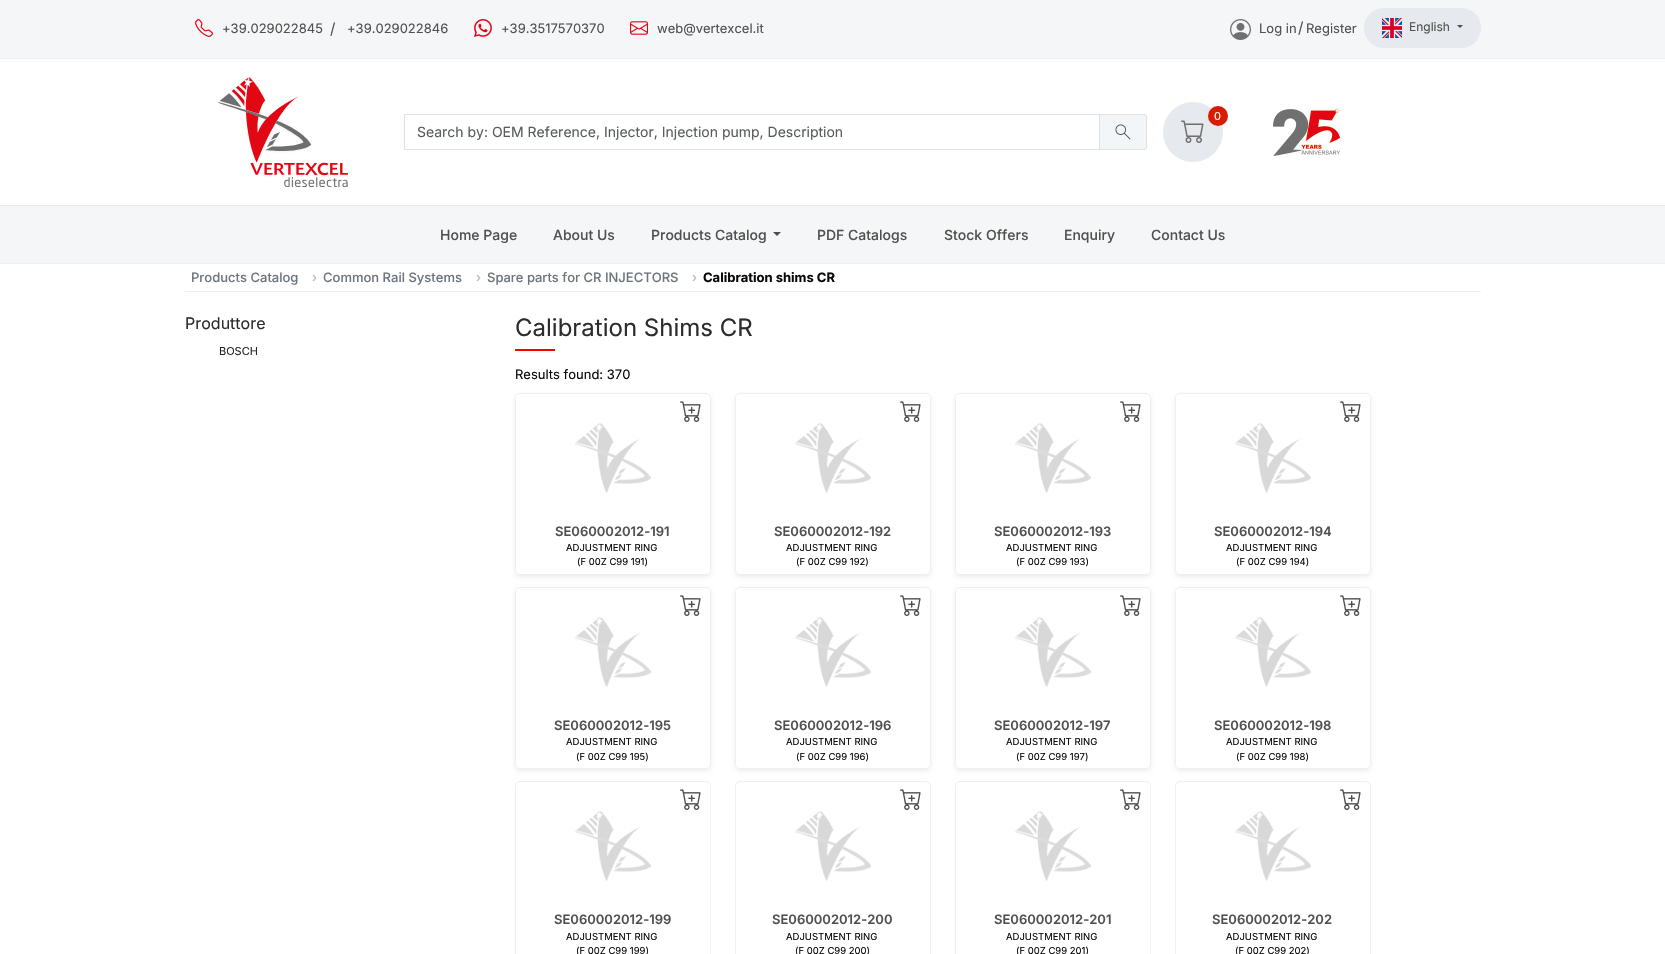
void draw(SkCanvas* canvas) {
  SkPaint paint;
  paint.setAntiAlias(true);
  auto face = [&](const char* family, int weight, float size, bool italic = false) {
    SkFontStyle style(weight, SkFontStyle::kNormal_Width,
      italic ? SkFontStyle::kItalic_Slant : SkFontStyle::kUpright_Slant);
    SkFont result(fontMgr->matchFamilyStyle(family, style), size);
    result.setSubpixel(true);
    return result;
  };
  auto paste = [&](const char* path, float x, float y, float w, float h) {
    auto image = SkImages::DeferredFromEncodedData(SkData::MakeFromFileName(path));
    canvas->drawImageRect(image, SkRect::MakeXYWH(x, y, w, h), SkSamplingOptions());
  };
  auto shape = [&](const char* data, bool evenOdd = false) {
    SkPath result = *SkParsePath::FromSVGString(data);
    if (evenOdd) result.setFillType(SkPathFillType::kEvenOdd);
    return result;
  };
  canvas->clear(0xffffffff);
  paint.setColor(0xfff5f6f8);
  canvas->drawRect(SkRect::MakeXYWH(0, 0, 1665, 58), paint);
  paint.setColor(0xffeceff4);
  canvas->drawRect(SkRect::MakeXYWH(0, 58, 1665, 1), paint);
  paste("img/1.png", 195, 19, 18, 18);
  paste("img/2.png", 474, 19, 18, 18);
  paste("img/3.png", 630, 21, 18, 14);
  paste("img/4.png", 1230, 19, 21, 21);
  paint.setColor(0xffe6e9ed);
  canvas->drawRoundRect(SkRect::MakeXYWH(1364, 8, 117, 40), 20, 20, paint);
  paste("img/5.png", 1382, 18, 20, 20);
  paint.setColor(0xff4e4e4e);
  canvas->drawPath(shape("M1457 25H1463L1460 28Z"), paint);
  paint.setColor(0xffe5e8ef);
  canvas->drawRect(SkRect::MakeXYWH(0, 205, 1665, 1), paint);
  paste("img/6.png", 218, 77, 130, 110);
  paint.setColor(0xffe6e9ed);
  canvas->drawCircle(1193, 132, 30, paint);
  paste("img/7.png", 1181, 120, 23, 23);
  paint.setColor(0xffd91c00);
  canvas->drawCircle(1218, 116, 10, paint);
  paste("img/8.png", 1273, 108, 67, 48);
  paint.setColor(0xfff3f6f9);
  canvas->drawPath(shape("M1099.5 114.5H1144C1145.5 114.5 1146.5 115.5 1146.5 117V147C1146.5 148.5 1145.5 149.5 1144 149.5H1099.5Z"), paint);
  paint.setStroke(true);
  paint.setStrokeWidth(1);
  paint.setColor(0xffdee2e6);
  canvas->drawPath(shape("M1099.5 114.5H1144C1145.5 114.5 1146.5 115.5 1146.5 117V147C1146.5 148.5 1145.5 149.5 1144 149.5H1099.5Z"), paint);
  canvas->drawRect(SkRect::MakeXYWH(404.5f, 114.5f, 695, 35), paint);
  paste("img/9.png", 1115, 124, 16, 16);
  paint.setStroke(false);
  paint.setColor(0xfff5f6f8);
  canvas->drawRect(SkRect::MakeXYWH(0, 206, 1665, 57), paint);
  paint.setColor(0xffeceff4);
  canvas->drawRect(SkRect::MakeXYWH(0, 263, 1665, 1), paint);
  paint.setColor(0xff4e4e4e);
  canvas->drawPath(shape("M773 232H781L777 236Z"), paint);
  paint.setColor(0xffefefef);
  canvas->drawRect(SkRect::MakeXYWH(185, 291, 1296, 1), paint);
  paint.setColor(0xffff0000);
  canvas->drawRect(SkRect::MakeXYWH(515, 349, 40, 2), paint);
  canvas->save();
  canvas->clipPath(shape("M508 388H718V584H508ZM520 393H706C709 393 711 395 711 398V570C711 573 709 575 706 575H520C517 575 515 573 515 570V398C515 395 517 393 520 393Z", true), true);
  paint.setColor(0x12000000);
  paint.setMaskFilter(SkMaskFilter::MakeBlur(kNormal_SkBlurStyle, 2));
  canvas->drawRoundRect(SkRect::MakeXYWH(515, 395, 196, 182), 5, 5, paint);
  paint.setMaskFilter(nullptr);
  canvas->restore();
  paint.setStroke(true);
  paint.setColor(0xffefefef);
  canvas->drawRoundRect(SkRect::MakeXYWH(515.5f, 393.5f, 195, 181), 4.5f, 4.5f, paint);
  paste("img/10.png", 680, 401, 21, 21);
  paste("img/11.png", 575, 423, 76, 70);
  canvas->save();
  canvas->clipPath(shape("M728 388H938V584H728ZM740 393H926C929 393 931 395 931 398V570C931 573 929 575 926 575H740C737 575 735 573 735 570V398C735 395 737 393 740 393Z", true), true);
  paint.setStroke(false);
  paint.setColor(0x12000000);
  paint.setMaskFilter(SkMaskFilter::MakeBlur(kNormal_SkBlurStyle, 2));
  canvas->drawRoundRect(SkRect::MakeXYWH(735, 395, 196, 182), 5, 5, paint);
  paint.setMaskFilter(nullptr);
  canvas->restore();
  paint.setStroke(true);
  paint.setColor(0xffefefef);
  canvas->drawRoundRect(SkRect::MakeXYWH(735.5f, 393.5f, 195, 181), 4.5f, 4.5f, paint);
  paste("img/10.png", 900, 401, 21, 21);
  paste("img/11.png", 795, 423, 76, 70);
  canvas->save();
  canvas->clipPath(shape("M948 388H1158V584H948ZM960 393H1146C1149 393 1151 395 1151 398V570C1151 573 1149 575 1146 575H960C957 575 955 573 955 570V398C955 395 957 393 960 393Z", true), true);
  paint.setStroke(false);
  paint.setColor(0x12000000);
  paint.setMaskFilter(SkMaskFilter::MakeBlur(kNormal_SkBlurStyle, 2));
  canvas->drawRoundRect(SkRect::MakeXYWH(955, 395, 196, 182), 5, 5, paint);
  paint.setMaskFilter(nullptr);
  canvas->restore();
  paint.setStroke(true);
  paint.setColor(0xffefefef);
  canvas->drawRoundRect(SkRect::MakeXYWH(955.5f, 393.5f, 195, 181), 4.5f, 4.5f, paint);
  paste("img/10.png", 1120, 401, 21, 21);
  paste("img/11.png", 1015, 423, 76, 70);
  canvas->save();
  canvas->clipPath(shape("M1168 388H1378V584H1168ZM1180 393H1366C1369 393 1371 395 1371 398V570C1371 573 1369 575 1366 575H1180C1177 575 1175 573 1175 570V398C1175 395 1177 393 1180 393Z", true), true);
  paint.setStroke(false);
  paint.setColor(0x12000000);
  paint.setMaskFilter(SkMaskFilter::MakeBlur(kNormal_SkBlurStyle, 2));
  canvas->drawRoundRect(SkRect::MakeXYWH(1175, 395, 196, 182), 5, 5, paint);
  paint.setMaskFilter(nullptr);
  canvas->restore();
  paint.setStroke(true);
  paint.setColor(0xffefefef);
  canvas->drawRoundRect(SkRect::MakeXYWH(1175.5f, 393.5f, 195, 181), 4.5f, 4.5f, paint);
  paste("img/10.png", 1340, 401, 21, 21);
  paste("img/11.png", 1235, 423, 76, 70);
  canvas->save();
  canvas->clipPath(shape("M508 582H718V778H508ZM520 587H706C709 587 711 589 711 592V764C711 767 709 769 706 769H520C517 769 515 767 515 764V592C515 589 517 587 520 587Z", true), true);
  paint.setStroke(false);
  paint.setColor(0x12000000);
  paint.setMaskFilter(SkMaskFilter::MakeBlur(kNormal_SkBlurStyle, 2));
  canvas->drawRoundRect(SkRect::MakeXYWH(515, 589, 196, 182), 5, 5, paint);
  paint.setMaskFilter(nullptr);
  canvas->restore();
  paint.setStroke(true);
  paint.setColor(0xffefefef);
  canvas->drawRoundRect(SkRect::MakeXYWH(515.5f, 587.5f, 195, 181), 4.5f, 4.5f, paint);
  paste("img/10.png", 680, 595, 21, 21);
  paste("img/11.png", 575, 617, 76, 70);
  canvas->save();
  canvas->clipPath(shape("M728 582H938V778H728ZM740 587H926C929 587 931 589 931 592V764C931 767 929 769 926 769H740C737 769 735 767 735 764V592C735 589 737 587 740 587Z", true), true);
  paint.setStroke(false);
  paint.setColor(0x12000000);
  paint.setMaskFilter(SkMaskFilter::MakeBlur(kNormal_SkBlurStyle, 2));
  canvas->drawRoundRect(SkRect::MakeXYWH(735, 589, 196, 182), 5, 5, paint);
  paint.setMaskFilter(nullptr);
  canvas->restore();
  paint.setStroke(true);
  paint.setColor(0xffefefef);
  canvas->drawRoundRect(SkRect::MakeXYWH(735.5f, 587.5f, 195, 181), 4.5f, 4.5f, paint);
  paste("img/10.png", 900, 595, 21, 21);
  paste("img/11.png", 795, 617, 76, 70);
  canvas->save();
  canvas->clipPath(shape("M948 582H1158V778H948ZM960 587H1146C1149 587 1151 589 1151 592V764C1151 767 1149 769 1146 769H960C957 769 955 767 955 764V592C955 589 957 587 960 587Z", true), true);
  paint.setStroke(false);
  paint.setColor(0x12000000);
  paint.setMaskFilter(SkMaskFilter::MakeBlur(kNormal_SkBlurStyle, 2));
  canvas->drawRoundRect(SkRect::MakeXYWH(955, 589, 196, 182), 5, 5, paint);
  paint.setMaskFilter(nullptr);
  canvas->restore();
  paint.setStroke(true);
  paint.setColor(0xffefefef);
  canvas->drawRoundRect(SkRect::MakeXYWH(955.5f, 587.5f, 195, 181), 4.5f, 4.5f, paint);
  paste("img/10.png", 1120, 595, 21, 21);
  paste("img/11.png", 1015, 617, 76, 70);
  canvas->save();
  canvas->clipPath(shape("M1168 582H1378V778H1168ZM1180 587H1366C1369 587 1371 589 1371 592V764C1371 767 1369 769 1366 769H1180C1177 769 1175 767 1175 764V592C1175 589 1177 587 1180 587Z", true), true);
  paint.setStroke(false);
  paint.setColor(0x12000000);
  paint.setMaskFilter(SkMaskFilter::MakeBlur(kNormal_SkBlurStyle, 2));
  canvas->drawRoundRect(SkRect::MakeXYWH(1175, 589, 196, 182), 5, 5, paint);
  paint.setMaskFilter(nullptr);
  canvas->restore();
  paint.setStroke(true);
  paint.setColor(0xffefefef);
  canvas->drawRoundRect(SkRect::MakeXYWH(1175.5f, 587.5f, 195, 181), 4.5f, 4.5f, paint);
  paste("img/10.png", 1340, 595, 21, 21);
  paste("img/11.png", 1235, 617, 76, 70);
  canvas->drawRoundRect(SkRect::MakeXYWH(515.5f, 781.5f, 195, 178), 4.5f, 4.5f, paint);
  paste("img/10.png", 680, 789, 21, 21);
  paste("img/11.png", 575, 811, 76, 70);
  canvas->drawRoundRect(SkRect::MakeXYWH(735.5f, 781.5f, 195, 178), 4.5f, 4.5f, paint);
  paste("img/10.png", 900, 789, 21, 21);
  paste("img/11.png", 795, 811, 76, 70);
  canvas->drawRoundRect(SkRect::MakeXYWH(955.5f, 781.5f, 195, 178), 4.5f, 4.5f, paint);
  paste("img/10.png", 1120, 789, 21, 21);
  paste("img/11.png", 1015, 811, 76, 70);
  canvas->drawRoundRect(SkRect::MakeXYWH(1175.5f, 781.5f, 195, 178), 4.5f, 4.5f, paint);
  paste("img/10.png", 1340, 789, 21, 21);
  paste("img/11.png", 1235, 811, 76, 70);
  auto f0 = face("Inter", 400, 13);
  paint.setStroke(false);
  paint.setColor(0xff505050);
  canvas->drawString("+39.029022845", 222, 33, f0, paint);
  auto f1 = face("Inter", 400, 15);
  canvas->drawString("/", 330, 34, f1, paint);
  {
    const struct { const char* s; float x, y; } items[] = {
      {"+39.029022846", 347, 33},
      {"+39.3517570370", 501, 33},
      {"web@vertexcel.it", 657, 33},
      {"Log in", 1259, 33},
    };
    for (auto [s, x, y] : items) {
      canvas->drawString(s, x, y, f0, paint);
    }
  }
  canvas->drawString("/", 1298, 33, f1, paint);
  canvas->drawString("Register", 1306, 33, f0, paint);
  auto f2 = face("Inter", 400, 12);
  canvas->drawString("English", 1409, 31, f2, paint);
  auto f3 = face("Inter", 400, 11);
  paint.setColor(0xffffffff);
  canvas->drawString("0", 1214, 120, f3, paint);
  auto f4 = face("Inter", 400, 14);
  paint.setColor(0xff595c5f);
  canvas->drawString("Search by: OEM Reference, Injector, Injection pump, Description", 417, 137, f4, paint);
  auto f5 = face("Inter", 500, 14);
  paint.setColor(0xff505050);
  {
    const struct { const char* s; float x, y; } items[] = {
      {"Home Page", 440, 240},
      {"About Us", 553, 240},
      {"Products Catalog", 651, 240},
      {"PDF Catalogs", 817, 240},
      {"Stock Offers", 944, 240},
      {"Enquiry", 1064, 240},
      {"Contact Us", 1151, 240},
    };
    for (auto [s, x, y] : items) {
      canvas->drawString(s, x, y, f5, paint);
    }
  }
  auto f6 = face("Inter", 500, 13);
  paint.setColor(0xff6c757d);
  canvas->drawString("Products Catalog", 191, 282, f6, paint);
  paint.setColor(0xffadb5bd);
  canvas->drawString("›", 312, 282, f0, paint);
  paint.setColor(0xff6c757d);
  canvas->drawString("Common Rail Systems", 323, 282, f6, paint);
  paint.setColor(0xffadb5bd);
  canvas->drawString("›", 476, 282, f0, paint);
  paint.setColor(0xff6c757d);
  canvas->drawString("Spare parts for CR INJECTORS", 487, 282, f6, paint);
  paint.setColor(0xffadb5bd);
  canvas->drawString("›", 692, 282, f0, paint);
  auto f7 = face("Inter", 700, 13);
  paint.setColor(0xff080808);
  canvas->drawString("Calibration shims CR", 703, 282, f7, paint);
  auto f8 = face("Inter", 400, 16);
  paint.setColor(0xff2c2c2c);
  canvas->drawString("Produttore", 185, 329, f8, paint);
  paint.setColor(0xff212529);
  canvas->drawString("BOSCH", 219, 355, f3, paint);
  auto f9 = face("Inter", 400, 24);
  paint.setColor(0xff2c2c2c);
  canvas->drawString("Calibration Shims CR", 515, 336, f9, paint);
  paint.setColor(0xff080808);
  canvas->drawString("Results found: 370", 515, 379, f0, paint);
  auto f10 = face("Inter", 600, 13);
  paint.setColor(0xff505050);
  canvas->drawString("SE060002012-191", 555, 536, f10, paint);
  auto f11 = face("Inter", 400, 9.5f);
  paint.setColor(0xff080808);
  canvas->drawString("ADJUSTMENT RING", 566, 551, f11, paint);
  canvas->drawString("(F 00Z C99 191)", 577, 565, f11, paint);
  paint.setColor(0xff505050);
  canvas->drawString("SE060002012-192", 774, 536, f10, paint);
  paint.setColor(0xff080808);
  canvas->drawString("ADJUSTMENT RING", 786, 551, f11, paint);
  canvas->drawString("(F 00Z C99 192)", 796, 565, f11, paint);
  paint.setColor(0xff505050);
  canvas->drawString("SE060002012-193", 994, 536, f10, paint);
  paint.setColor(0xff080808);
  canvas->drawString("ADJUSTMENT RING", 1006, 551, f11, paint);
  canvas->drawString("(F 00Z C99 193)", 1016, 565, f11, paint);
  paint.setColor(0xff505050);
  canvas->drawString("SE060002012-194", 1214, 536, f10, paint);
  paint.setColor(0xff080808);
  canvas->drawString("ADJUSTMENT RING", 1226, 551, f11, paint);
  canvas->drawString("(F 00Z C99 194)", 1236, 565, f11, paint);
  paint.setColor(0xff505050);
  canvas->drawString("SE060002012-195", 554, 730, f10, paint);
  paint.setColor(0xff080808);
  canvas->drawString("ADJUSTMENT RING", 566, 745, f11, paint);
  canvas->drawString("(F 00Z C99 195)", 576, 760, f11, paint);
  paint.setColor(0xff505050);
  canvas->drawString("SE060002012-196", 774, 730, f10, paint);
  paint.setColor(0xff080808);
  canvas->drawString("ADJUSTMENT RING", 786, 745, f11, paint);
  canvas->drawString("(F 00Z C99 196)", 796, 760, f11, paint);
  paint.setColor(0xff505050);
  canvas->drawString("SE060002012-197", 994, 730, f10, paint);
  paint.setColor(0xff080808);
  canvas->drawString("ADJUSTMENT RING", 1006, 745, f11, paint);
  canvas->drawString("(F 00Z C99 197)", 1016, 760, f11, paint);
  paint.setColor(0xff505050);
  canvas->drawString("SE060002012-198", 1214, 730, f10, paint);
  paint.setColor(0xff080808);
  canvas->drawString("ADJUSTMENT RING", 1226, 745, f11, paint);
  canvas->drawString("(F 00Z C99 198)", 1236, 760, f11, paint);
  paint.setColor(0xff505050);
  canvas->drawString("SE060002012-199", 554, 924, f10, paint);
  paint.setColor(0xff080808);
  canvas->drawString("ADJUSTMENT RING", 566, 940, f11, paint);
  canvas->drawString("(F 00Z C99 199)", 576, 954, f11, paint);
  paint.setColor(0xff505050);
  canvas->drawString("SE060002012-200", 772, 924, f10, paint);
  paint.setColor(0xff080808);
  canvas->drawString("ADJUSTMENT RING", 786, 940, f11, paint);
  canvas->drawString("(F 00Z C99 200)", 795, 954, f11, paint);
  paint.setColor(0xff505050);
  canvas->drawString("SE060002012-201", 994, 924, f10, paint);
  paint.setColor(0xff080808);
  canvas->drawString("ADJUSTMENT RING", 1006, 940, f11, paint);
  canvas->drawString("(F 00Z C99 201)", 1016, 954, f11, paint);
  paint.setColor(0xff505050);
  canvas->drawString("SE060002012-202", 1212, 924, f10, paint);
  paint.setColor(0xff080808);
  canvas->drawString("ADJUSTMENT RING", 1226, 940, f11, paint);
  canvas->drawString("(F 00Z C99 202)", 1235, 954, f11, paint);
}
